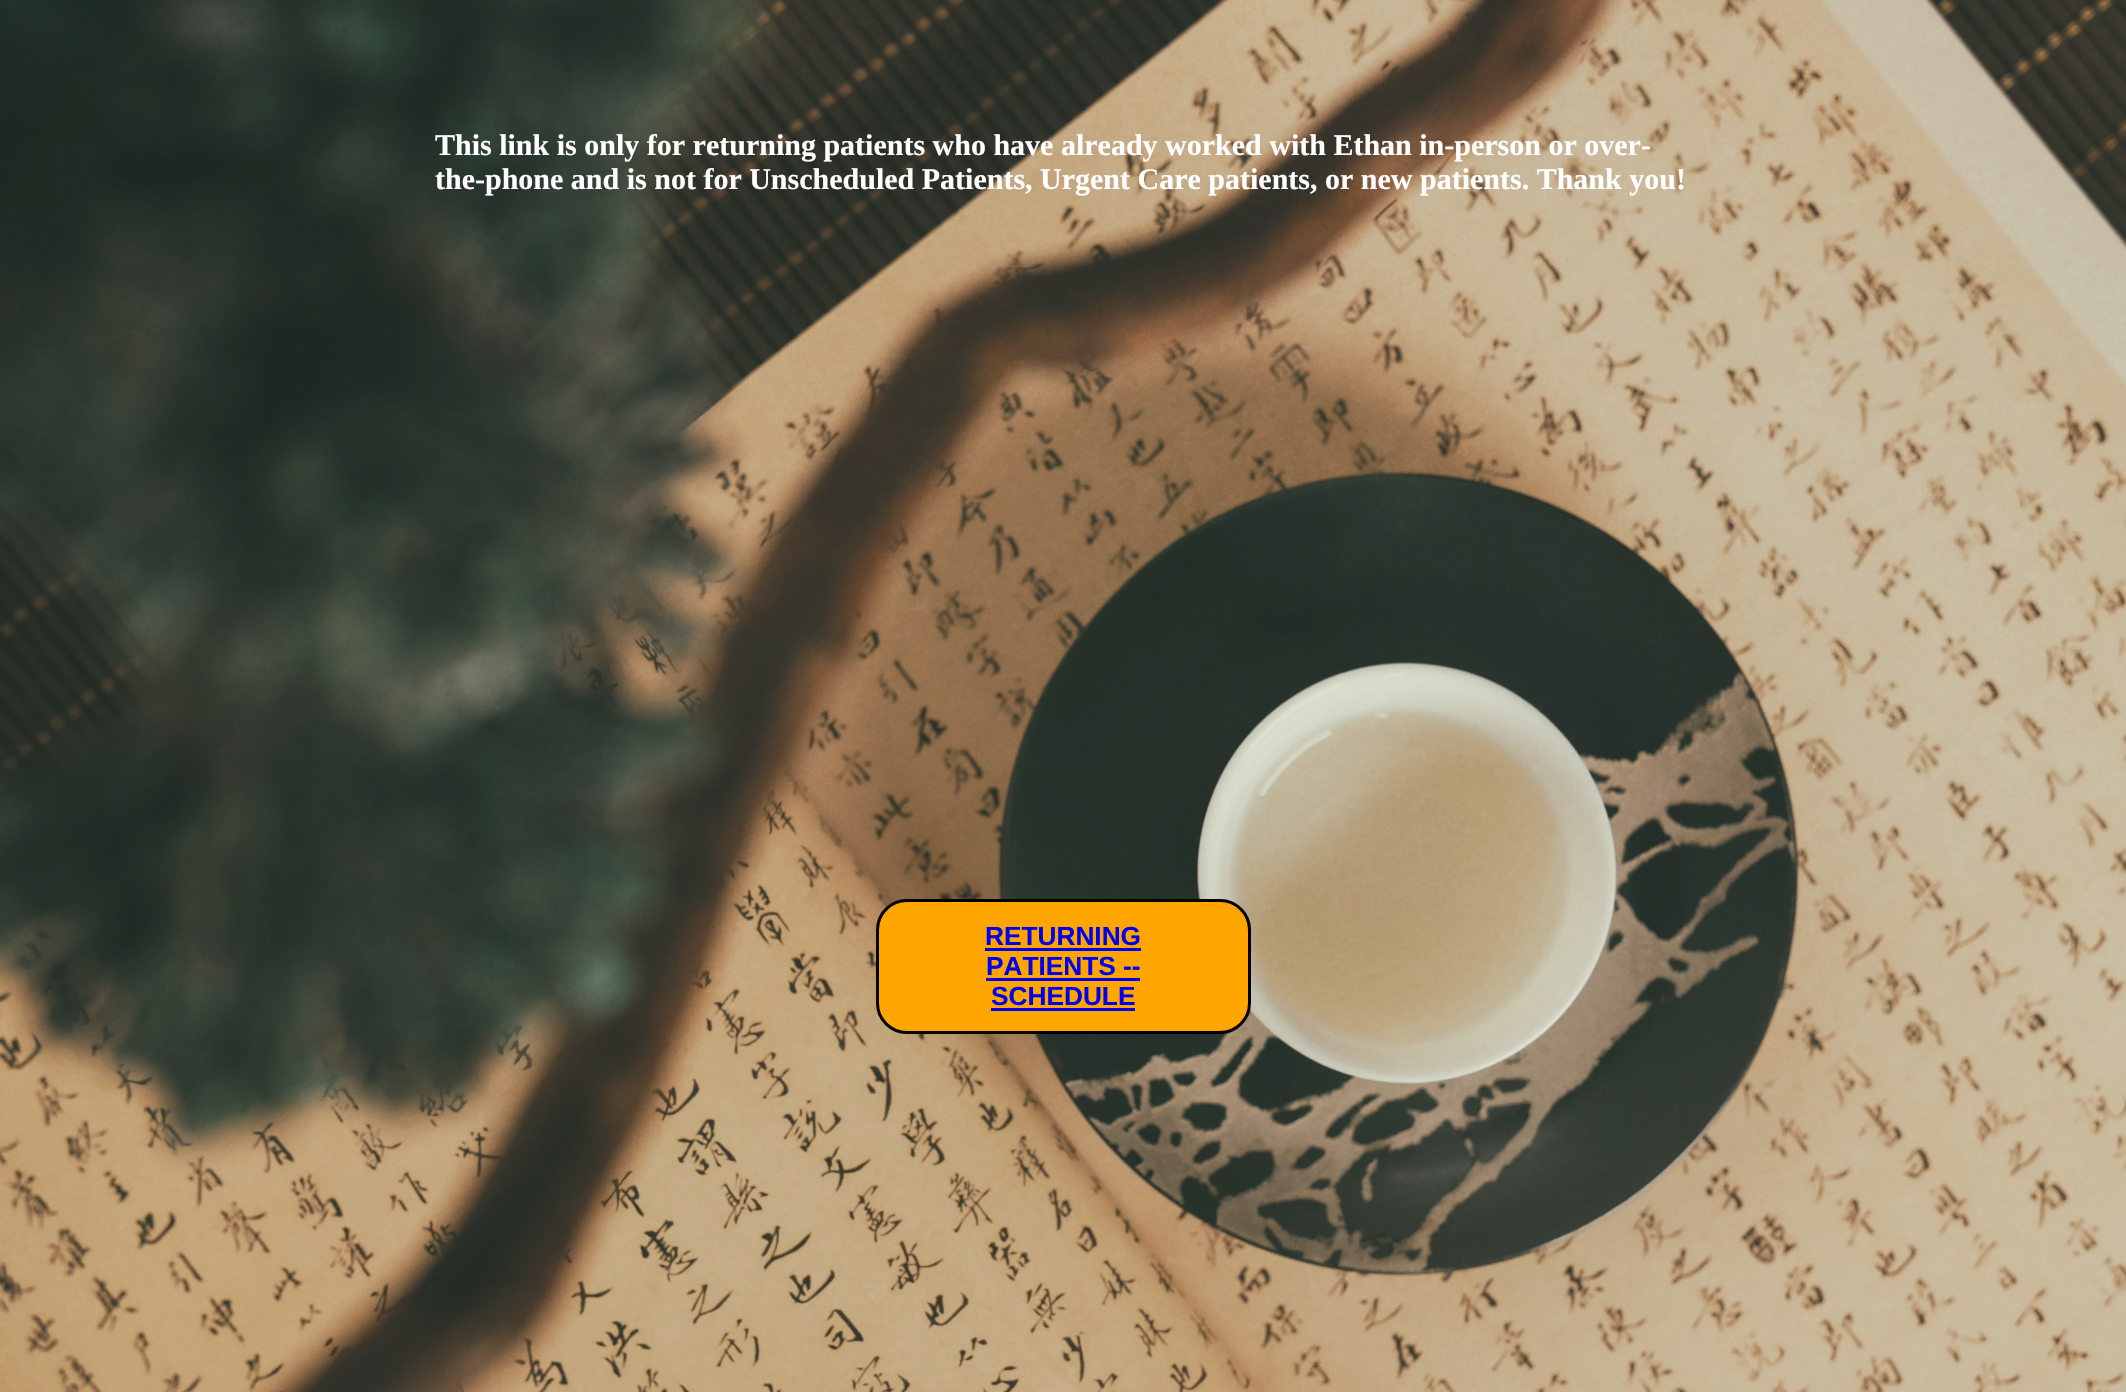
void draw(SkCanvas* canvas) {
  SkPaint paint;
  paint.setAntiAlias(true);
  auto face = [&](const char* family, int weight, float size, bool italic = false) {
    SkFontStyle style(weight, SkFontStyle::kNormal_Width,
      italic ? SkFontStyle::kItalic_Slant : SkFontStyle::kUpright_Slant);
    SkFont result(fontMgr->matchFamilyStyle(family, style), size);
    result.setSubpixel(true);
    return result;
  };
  auto paste = [&](const char* path, float x, float y, float w, float h) {
    auto image = SkImages::DeferredFromEncodedData(SkData::MakeFromFileName(path));
    canvas->drawImageRect(image, SkRect::MakeXYWH(x, y, w, h), SkSamplingOptions());
  };
  canvas->clear(0xffffffff);
  paste("img/1.png", 0, 0, 2126, 1392);
  paint.setColor(0xffffa500);
  canvas->drawRoundRect(SkRect::MakeXYWH(877.5f, 900.5f, 372, 132), 29.5f, 29.5f, paint);
  paint.setStroke(true);
  paint.setStrokeWidth(3);
  paint.setColor(0xff000000);
  canvas->drawRoundRect(SkRect::MakeXYWH(877.5f, 900.5f, 372, 132), 29.5f, 29.5f, paint);
  paint.setStroke(false);
  {
    const struct { float x, y, w, h; SkColor color; } items[] = {
      {985, 948, 156, 3, 0xff0000ee},
      {986, 978, 154, 3, 0xff0000ee},
      {991, 1008, 144, 3, 0xff0000ee},
    };
    for (auto [x, y, w, h, color] : items) {
      paint.setColor(color);
      canvas->drawRect(SkRect::MakeXYWH(x, y, w, h), paint);
    }
  }
  auto f0 = face("Liberation Serif", 700, 30);
  paint.setColor(0xffffffff);
  canvas->drawString("This link is only for returning patients who have already worked with Ethan in-person or over-", 435, 155, f0, paint);
  canvas->drawString("the-phone and is not for Unscheduled Patients, Urgent Care patients, or new patients. Thank you!", 435, 189, f0, paint);
  auto f1 = face("Liberation Sans", 700, 26.25f);
  paint.setColor(0xff0000ee);
  {
    const struct { const char* s; float x, y; } items[] = {
      {"RETURNING", 985, 945},
      {"PATIENTS --", 986, 975},
      {"SCHEDULE", 991, 1005},
    };
    for (auto [s, x, y] : items) {
      canvas->drawString(s, x, y, f1, paint);
    }
  }
}
